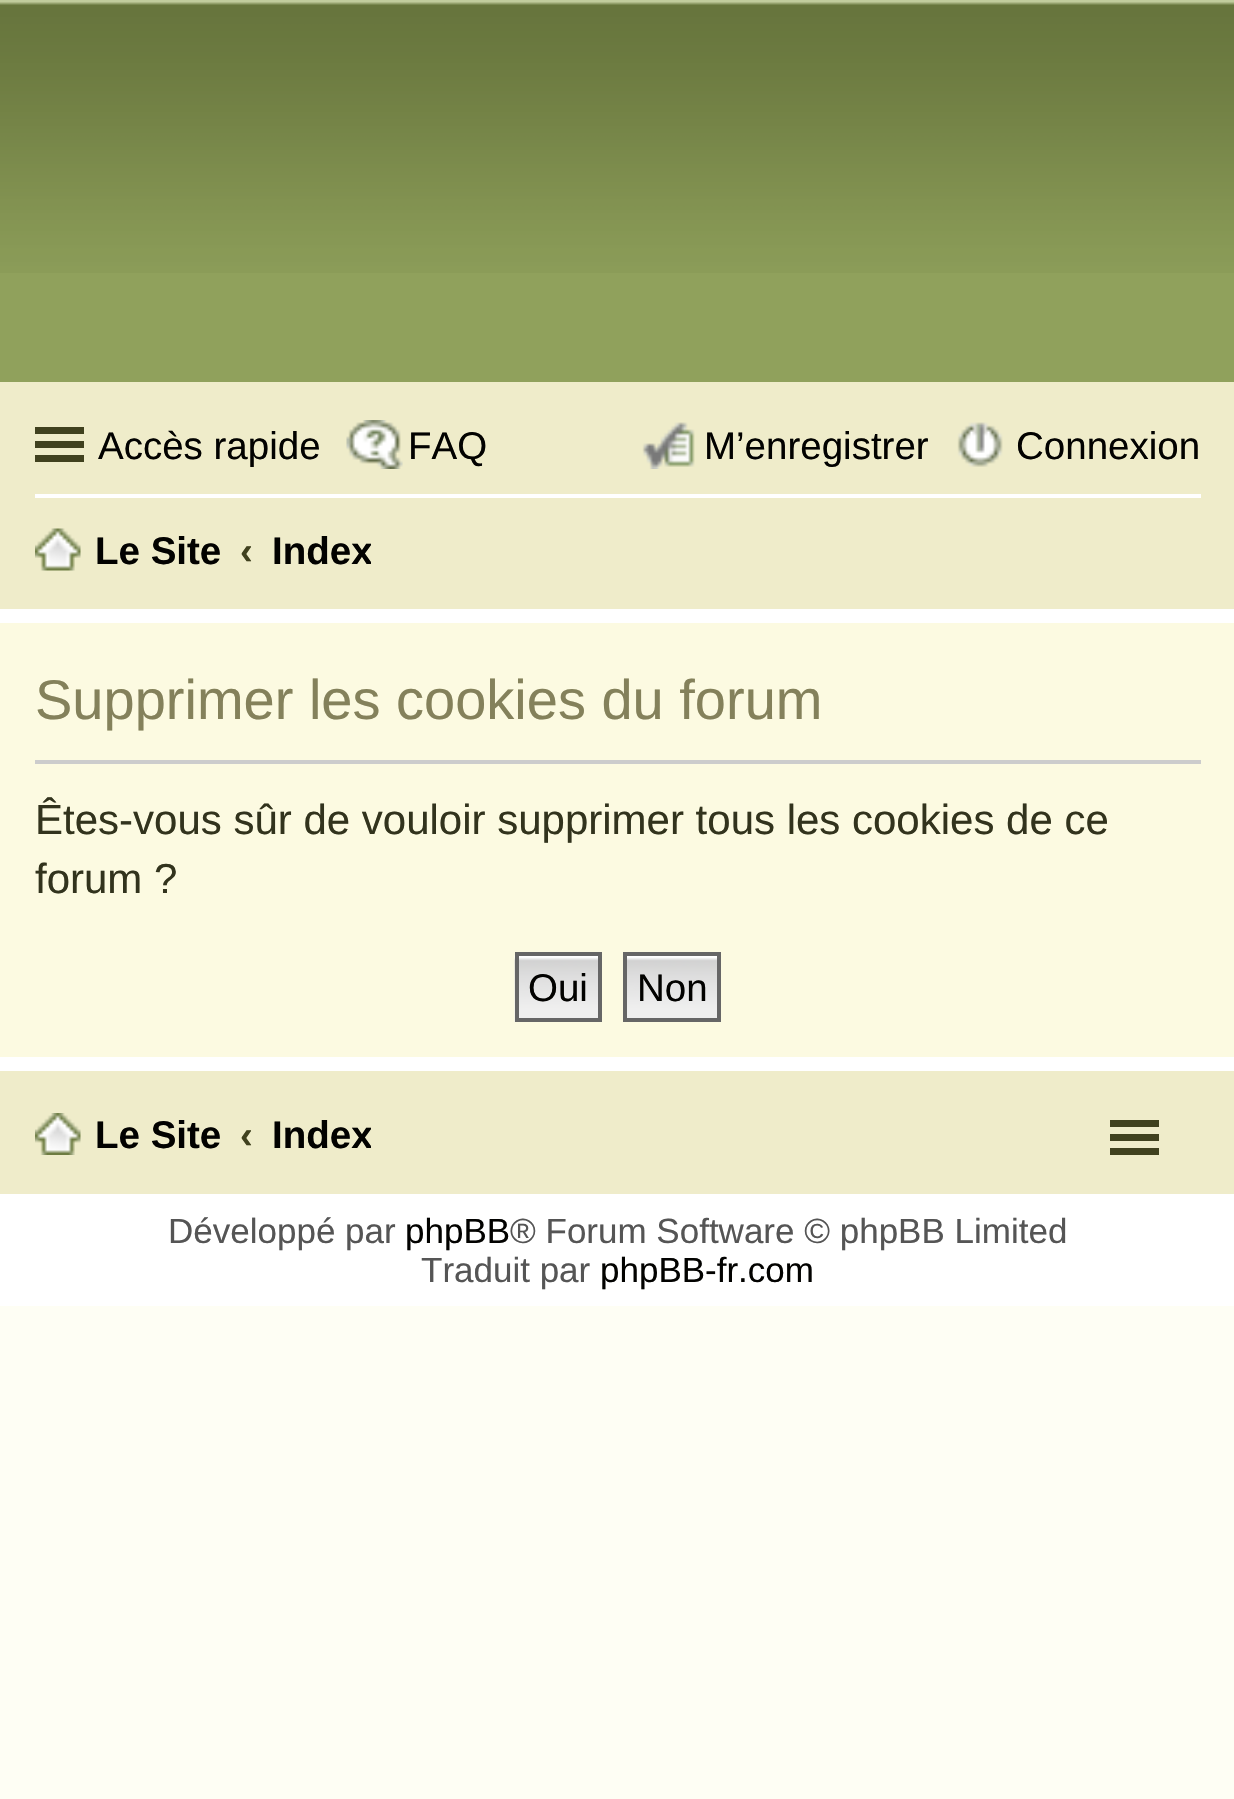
void draw(SkCanvas* canvas) {
  SkPaint paint;
  paint.setAntiAlias(true);
  auto face = [&](const char* family, int weight, float size, bool italic = false) {
    SkFontStyle style(weight, SkFontStyle::kNormal_Width,
      italic ? SkFontStyle::kItalic_Slant : SkFontStyle::kUpright_Slant);
    SkFont result(fontMgr->matchFamilyStyle(family, style), size);
    result.setSubpixel(true);
    return result;
  };
  auto paste = [&](const char* path, float x, float y, float w, float h) {
    auto image = SkImages::DeferredFromEncodedData(SkData::MakeFromFileName(path));
    canvas->drawImageRect(image, SkRect::MakeXYWH(x, y, w, h), SkSamplingOptions());
  };
  canvas->clear(0xfffefef4);
  paint.setColor(0xffffffff);
  canvas->drawRect(SkRect::MakeXYWH(0, 609, 1234, 697), paint);
  paint.setColor(0xff90a15c);
  canvas->drawRect(SkRect::MakeXYWH(0, 273, 1234, 109), paint);
  paste("img/1.png", 0, 0, 1234, 273);
  {
    const struct { float x, y, w, h; SkColor color; } items[] = {
      {0, 382, 1234, 227, 0xffefecca},
      {35, 427, 49, 7, 0xff40411e},
      {35, 441, 49, 7, 0xff40411e},
      {35, 455, 49, 7, 0xff40411e},
    };
    for (auto [x, y, w, h, color] : items) {
      paint.setColor(color);
      canvas->drawRect(SkRect::MakeXYWH(x, y, w, h), paint);
    }
  }
  paste("img/2.png", 346, 420, 57, 49);
  paste("img/3.png", 642, 422, 53, 47);
  paste("img/4.png", 957, 422, 46, 45);
  paint.setColor(0xffffffff);
  canvas->drawRect(SkRect::MakeXYWH(35, 494, 1166, 4), paint);
  paste("img/5.png", 35, 528, 46, 43);
  paint.setColor(0xfffcfae1);
  canvas->drawRect(SkRect::MakeXYWH(0, 623, 1234, 434), paint);
  paint.setColor(0xffcccccc);
  canvas->drawRect(SkRect::MakeXYWH(35, 760, 1166, 4), paint);
  paste("img/6.png", 514, 955, 84, 67);
  paint.setStroke(true);
  paint.setStrokeWidth(4);
  paint.setColor(0xff666666);
  canvas->drawRect(SkRect::MakeXYWH(517, 954, 83, 66), paint);
  paste("img/7.png", 627, 956, 90, 62);
  canvas->drawRect(SkRect::MakeXYWH(625, 954, 94, 66), paint);
  paint.setStroke(false);
  paint.setColor(0xffefecca);
  canvas->drawRect(SkRect::MakeXYWH(0, 1071, 1234, 123), paint);
  paste("img/8.png", 35, 1113, 46, 42);
  {
    const struct { float x, y, w, h; SkColor color; } items[] = {
      {1110, 1120, 49, 7, 0xff40411e},
      {1110, 1134, 49, 7, 0xff40411e},
      {1110, 1148, 49, 7, 0xff40411e},
    };
    for (auto [x, y, w, h, color] : items) {
      paint.setColor(color);
      canvas->drawRect(SkRect::MakeXYWH(x, y, w, h), paint);
    }
  }
  auto f0 = face("Liberation Sans", 400, 38.5f);
  paint.setColor(0xff020200);
  {
    const struct { const char* s; float x, y; } items[] = {
      {"Accès rapide", 98, 459},
      {"FAQ", 408, 459},
      {"M’enregistrer", 704, 459},
      {"Connexion", 1016, 459},
    };
    for (auto [s, x, y] : items) {
      canvas->drawString(s, x, y, f0, paint);
    }
  }
  auto f1 = face("Liberation Sans", 700, 38.5f);
  canvas->drawString("Le Site", 95, 564, f1, paint);
  paint.setColor(0xff40411e);
  canvas->drawString("‹", 240, 564, f1, paint);
  canvas->save();
  canvas->clipRect(SkRect::MakeXYWH(273, 508, 98, 84));
  paint.setColor(0xff020200);
  canvas->drawString("Index", 272, 564, f1, paint);
  canvas->restore();
  auto f2 = face("Liberation Sans", 400, 56);
  paint.setColor(0xff84815b);
  canvas->drawString("Supprimer les cookies du forum", 35, 719, f2, paint);
  auto f3 = face("Liberation Sans", 400, 42);
  paint.setColor(0xff32331d);
  canvas->drawString("Êtes-vous sûr de vouloir supprimer tous les cookies de ce", 35, 834, f3, paint);
  canvas->drawString("forum ?", 35, 893, f3, paint);
  paint.setColor(0xff020200);
  canvas->drawString("Oui", 528, 1001, f0, paint);
  canvas->drawString("Non", 637, 1001, f0, paint);
  canvas->drawString("Le Site", 95, 1148, f1, paint);
  paint.setColor(0xff40411e);
  canvas->drawString("‹", 240, 1148, f1, paint);
  canvas->save();
  canvas->clipRect(SkRect::MakeXYWH(273, 1092, 98, 84));
  paint.setColor(0xff020200);
  canvas->drawString("Index", 272, 1148, f1, paint);
  canvas->restore();
  auto f4 = face("Liberation Sans", 400, 35);
  paint.setColor(0xff555555);
  canvas->drawString("Développé par", 168, 1243, f4, paint);
  paint.setColor(0xff020200);
  canvas->drawString("phpBB", 405, 1243, f4, paint);
  paint.setColor(0xff555555);
  canvas->drawString("® Forum Software © phpBB Limited", 510, 1243, f4, paint);
  canvas->drawString("Traduit par", 421, 1282, f4, paint);
  paint.setColor(0xff020200);
  canvas->drawString("phpBB-fr.com", 600, 1282, f4, paint);
}
